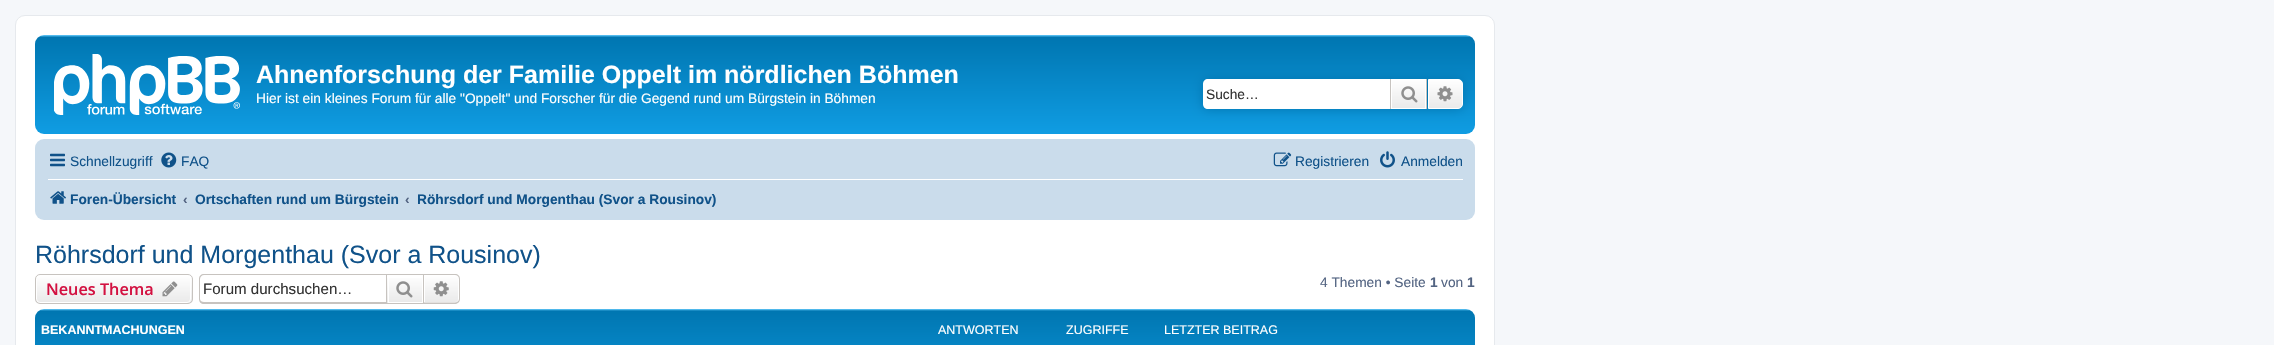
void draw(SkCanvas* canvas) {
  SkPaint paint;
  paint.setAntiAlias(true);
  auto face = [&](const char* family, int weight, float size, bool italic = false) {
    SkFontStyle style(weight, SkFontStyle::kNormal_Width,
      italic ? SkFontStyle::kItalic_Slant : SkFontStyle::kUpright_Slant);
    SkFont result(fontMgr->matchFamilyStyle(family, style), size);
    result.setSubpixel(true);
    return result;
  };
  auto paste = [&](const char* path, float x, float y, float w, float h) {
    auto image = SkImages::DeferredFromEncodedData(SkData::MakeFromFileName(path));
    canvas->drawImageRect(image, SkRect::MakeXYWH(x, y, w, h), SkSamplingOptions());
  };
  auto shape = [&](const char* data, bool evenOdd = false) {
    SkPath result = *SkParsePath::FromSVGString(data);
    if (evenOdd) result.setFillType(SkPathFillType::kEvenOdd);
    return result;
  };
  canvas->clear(0xfff5f7fa);
  paint.setColor(0xffffffff);
  canvas->drawRoundRect(SkRect::MakeXYWH(15.5f, 15.5f, 1479, 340), 9.5f, 9.5f, paint);
  paint.setStroke(true);
  paint.setStrokeWidth(1);
  paint.setColor(0xffe6e9ed);
  canvas->drawRoundRect(SkRect::MakeXYWH(15.5f, 15.5f, 1479, 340), 9.5f, 9.5f, paint);
  paint.setStroke(false);
  {
    const SkColor colors[] = {0xff6aceff, 0xff0076b1, 0xff12a3eb};
    const float stops[] = {0, 0.02f, 1};
    const SkPoint ends[] = {{755, 35}, {755, 150}};
    paint.setShader(SkGradientShader::MakeLinear(ends, colors, stops, 3, SkTileMode::kClamp));
    paint.setAlpha(255);
  }
  canvas->drawRoundRect(SkRect::MakeXYWH(35, 35, 1440, 99), 9, 9, paint);
  paste("img/1.png", 54, 54, 186, 61);
  paint.setShader(nullptr);
  paint.setColor(0xff0075b0);
  paint.setMaskFilter(SkMaskFilter::MakeBlur(kNormal_SkBlurStyle, 6));
  canvas->drawRoundRect(SkRect::MakeXYWH(1203, 79, 260, 30), 5, 5, paint);
  paint.setMaskFilter(nullptr);
  paint.setColor(0xffffffff);
  canvas->drawPath(shape("M1208 79H1390V109H1208C1205 109 1203 107 1203 104V84C1203 81 1205 79 1208 79Z"), paint);
  {
    const SkColor colors[] = {0xffffffff, 0xffe9e9e9};
    const float stops[] = {0, 1};
    const SkPoint ends[] = {{1409, 79}, {1409, 109}};
    paint.setShader(SkGradientShader::MakeLinear(ends, colors, stops, 2, SkTileMode::kClamp));
    paint.setAlpha(255);
  }
  canvas->drawRect(SkRect::MakeXYWH(1392, 80, 33, 28), paint);
  paint.setStroke(true);
  paint.setShader(nullptr);
  paint.setColor(0xffffffff);
  canvas->drawRect(SkRect::MakeXYWH(1391.5f, 79.5f, 34, 29), paint);
  paint.setStroke(false);
  paint.setColor(0xffc7c3bf);
  canvas->drawRect(SkRect::MakeXYWH(1426, 79, 1, 30), paint);
  canvas->drawRect(SkRect::MakeXYWH(1390, 79, 1, 30), paint);
  paste("img/2.png", 1401, 86, 17, 17);
  {
    const SkColor colors[] = {0xffffffff, 0xffe9e9e9};
    const float stops[] = {0, 1};
    const SkPoint ends[] = {{1445, 79}, {1445, 109}};
    paint.setShader(SkGradientShader::MakeLinear(ends, colors, stops, 2, SkTileMode::kClamp));
    paint.setAlpha(255);
  }
  canvas->drawPath(shape("M1428.5 79.5H1458C1460.5 79.5 1462.5 81.5 1462.5 84V104C1462.5 106.5 1460.5 108.5 1458 108.5H1428.5Z"), paint);
  paint.setStroke(true);
  paint.setShader(nullptr);
  paint.setColor(0xffffffff);
  canvas->drawPath(shape("M1428.5 79.5H1458C1460.5 79.5 1462.5 81.5 1462.5 84V104C1462.5 106.5 1460.5 108.5 1458 108.5H1428.5Z"), paint);
  paste("img/3.png", 1437, 86, 16, 16);
  paint.setStroke(false);
  paint.setColor(0xffcadceb);
  canvas->drawRoundRect(SkRect::MakeXYWH(35, 139, 1440, 81), 9, 9, paint);
  paste("img/4.png", 50, 153, 15, 14);
  paste("img/5.png", 161, 152, 16, 16);
  paste("img/6.png", 1273, 152, 19, 15);
  paste("img/7.png", 1380, 151, 15, 17);
  paint.setColor(0xffffffff);
  canvas->drawRect(SkRect::MakeXYWH(48, 179, 1415, 1), paint);
  paste("img/8.png", 50, 191, 16, 13);
  canvas->save();
  canvas->clipPath(shape("M40 274H188C191 274 193 276 193 279V299C193 302 191 304 188 304H40C37 304 35 302 35 299V279C35 276 37 274 40 274Z"), true);
  {
    const SkColor colors[] = {0xffffffff, 0xffe9e9e9};
    const float stops[] = {0, 1};
    const SkPoint ends[] = {{114, 275}, {114, 303}};
    paint.setShader(SkGradientShader::MakeLinear(ends, colors, stops, 2, SkTileMode::kClamp));
    paint.setAlpha(255);
  }
  canvas->drawRect(SkRect::MakeXYWH(35, 275, 158, 28), paint);
  canvas->restore();
  paint.setStroke(true);
  paint.setShader(nullptr);
  paint.setColor(0xffffffff);
  canvas->drawRoundRect(SkRect::MakeXYWH(36.5f, 275.5f, 154, 27), 3.5f, 3.5f, paint);
  paint.setColor(0xffc7c3bf);
  canvas->drawRoundRect(SkRect::MakeXYWH(35.5f, 274.5f, 157, 29), 4.5f, 4.5f, paint);
  paste("img/9.png", 162, 281, 16, 16);
  paint.setStroke(false);
  canvas->drawPath(shape("M204 274H386V304H204C201 304 199 302 199 299V279C199 276 201 274 204 274ZM204 275H386V302H204C202 302 200 301 200 299V279C200 277 202 275 204 275Z", true), paint);
  {
    const SkColor colors[] = {0xffffffff, 0xffe9e9e9};
    const float stops[] = {0, 1};
    const SkPoint ends[] = {{405, 275}, {405, 303}};
    paint.setShader(SkGradientShader::MakeLinear(ends, colors, stops, 2, SkTileMode::kClamp));
    paint.setAlpha(255);
  }
  canvas->drawRect(SkRect::MakeXYWH(387, 278, 35, 25), paint);
  paint.setStroke(true);
  paint.setShader(nullptr);
  paint.setColor(0xffffffff);
  canvas->drawRect(SkRect::MakeXYWH(388.5f, 275.5f, 34, 27), paint);
  paint.setColor(0xffc7c3bf);
  canvas->drawRect(SkRect::MakeXYWH(386.5f, 274.5f, 37, 29), paint);
  paste("img/10.png", 396, 281, 17, 17);
  paint.setStroke(false);
  {
    const SkColor colors[] = {0xffffffff, 0xffe9e9e9};
    const float stops[] = {0, 1};
    const SkPoint ends[] = {{441, 275}, {441, 303}};
    paint.setShader(SkGradientShader::MakeLinear(ends, colors, stops, 2, SkTileMode::kClamp));
    paint.setAlpha(255);
  }
  canvas->drawPath(shape("M424.5 275.5H455C457 275.5 458.5 277 458.5 279V299C458.5 301 457 302.5 455 302.5H424.5Z"), paint);
  paint.setStroke(true);
  paint.setShader(nullptr);
  paint.setColor(0xffffffff);
  canvas->drawPath(shape("M424.5 275.5H455C457 275.5 458.5 277 458.5 279V299C458.5 301 457 302.5 455 302.5H424.5Z"), paint);
  paint.setStroke(false);
  paint.setColor(0xffc7c3bf);
  canvas->drawPath(shape("M424 274H455C458 274 460 276 460 279V299C460 301.5 458 304 455 304H424ZM424 275H455C457 275 459 276.5 459 279V299C459 301 457 302.5 455 302.5H424Z", true), paint);
  paste("img/11.png", 433, 281, 16, 16);
  {
    const SkColor colors[] = {0xff6aceff, 0xff0076b1, 0xff12a3eb, 0xff12a3eb};
    const float stops[] = {0, 0.01f, 0.58f, 1};
    const SkPoint ends[] = {{755, 309}, {755, 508}};
    paint.setShader(SkGradientShader::MakeLinear(ends, colors, stops, 4, SkTileMode::kClamp));
    paint.setAlpha(255);
  }
  canvas->drawRoundRect(SkRect::MakeXYWH(35, 309, 1440, 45), 9, 9, paint);
  auto f0 = face("Liberation Sans", 700, 25);
  paint.setShader(nullptr);
  paint.setColor(0xffffffff);
  canvas->drawString("Ahnenforschung der Familie Oppelt im nördlichen Böhmen", 256, 83, f0, paint);
  auto f1 = face("Liberation Sans", 400, 13.75f);
  canvas->drawString("Hier ist ein kleines Forum für alle \"Oppelt\" und Forscher für die Gegend rund um Bürgstein in Böhmen", 256, 103, f1, paint);
  paint.setColor(0xff333333);
  canvas->drawString("Suche…", 1206, 99, f1, paint);
  paint.setColor(0xff105289);
  {
    const struct { const char* s; float x, y; } items[] = {
      {"Schnellzugriff", 70, 166},
      {"FAQ", 181, 166},
      {"Registrieren", 1295, 166},
      {"Anmelden", 1401, 166},
    };
    for (auto [s, x, y] : items) {
      canvas->drawString(s, x, y, f1, paint);
    }
  }
  auto f2 = face("Liberation Sans", 700, 13.75f);
  canvas->drawString("Foren-Übersicht", 70, 204, f2, paint);
  paint.setColor(0xff536482);
  canvas->drawString("‹", 183, 204, f2, paint);
  paint.setColor(0xff105289);
  canvas->drawString("Ortschaften rund um Bürgstein", 195, 204, f2, paint);
  paint.setColor(0xff536482);
  canvas->drawString("‹", 405, 204, f2, paint);
  canvas->save();
  canvas->clipRect(SkRect::MakeXYWH(418, 184, 298, 30));
  paint.setColor(0xff105289);
  canvas->drawString("Röhrsdorf und Morgenthau (Svor a Rousinov)", 417, 204, f2, paint);
  canvas->restore();
  auto f3 = face("Liberation Sans", 400, 25);
  canvas->drawString("Röhrsdorf und Morgenthau (Svor a Rousinov)", 35, 263, f3, paint);
  auto f4 = face("Open Sans", 600, 16.25f);
  paint.setColor(0xffd31141);
  canvas->drawString("Neues Thema", 46, 295, f4, paint);
  auto f5 = face("Liberation Sans", 400, 15.1f);
  paint.setColor(0xff333333);
  canvas->drawString("Forum durchsuchen…", 203, 294, f5, paint);
  paint.setColor(0xff536482);
  canvas->drawString("4 Themen • Seite", 1320, 287, f1, paint);
  canvas->drawString("1", 1430, 287, f2, paint);
  canvas->drawString("von", 1441, 287, f1, paint);
  canvas->drawString("1", 1467, 287, f2, paint);
  auto f6 = face("Liberation Sans", 700, 12.5f);
  paint.setColor(0xffffffff);
  canvas->drawString("BEKANNTMACHUNGEN", 41, 334, f6, paint);
  auto f7 = face("Liberation Sans", 400, 12.5f);
  {
    const struct { const char* s; float x, y; } items[] = {
      {"ANTWORTEN", 938, 334},
      {"ZUGRIFFE", 1066, 334},
      {"LETZTER BEITRAG", 1164, 334},
    };
    for (auto [s, x, y] : items) {
      canvas->drawString(s, x, y, f7, paint);
    }
  }
}
